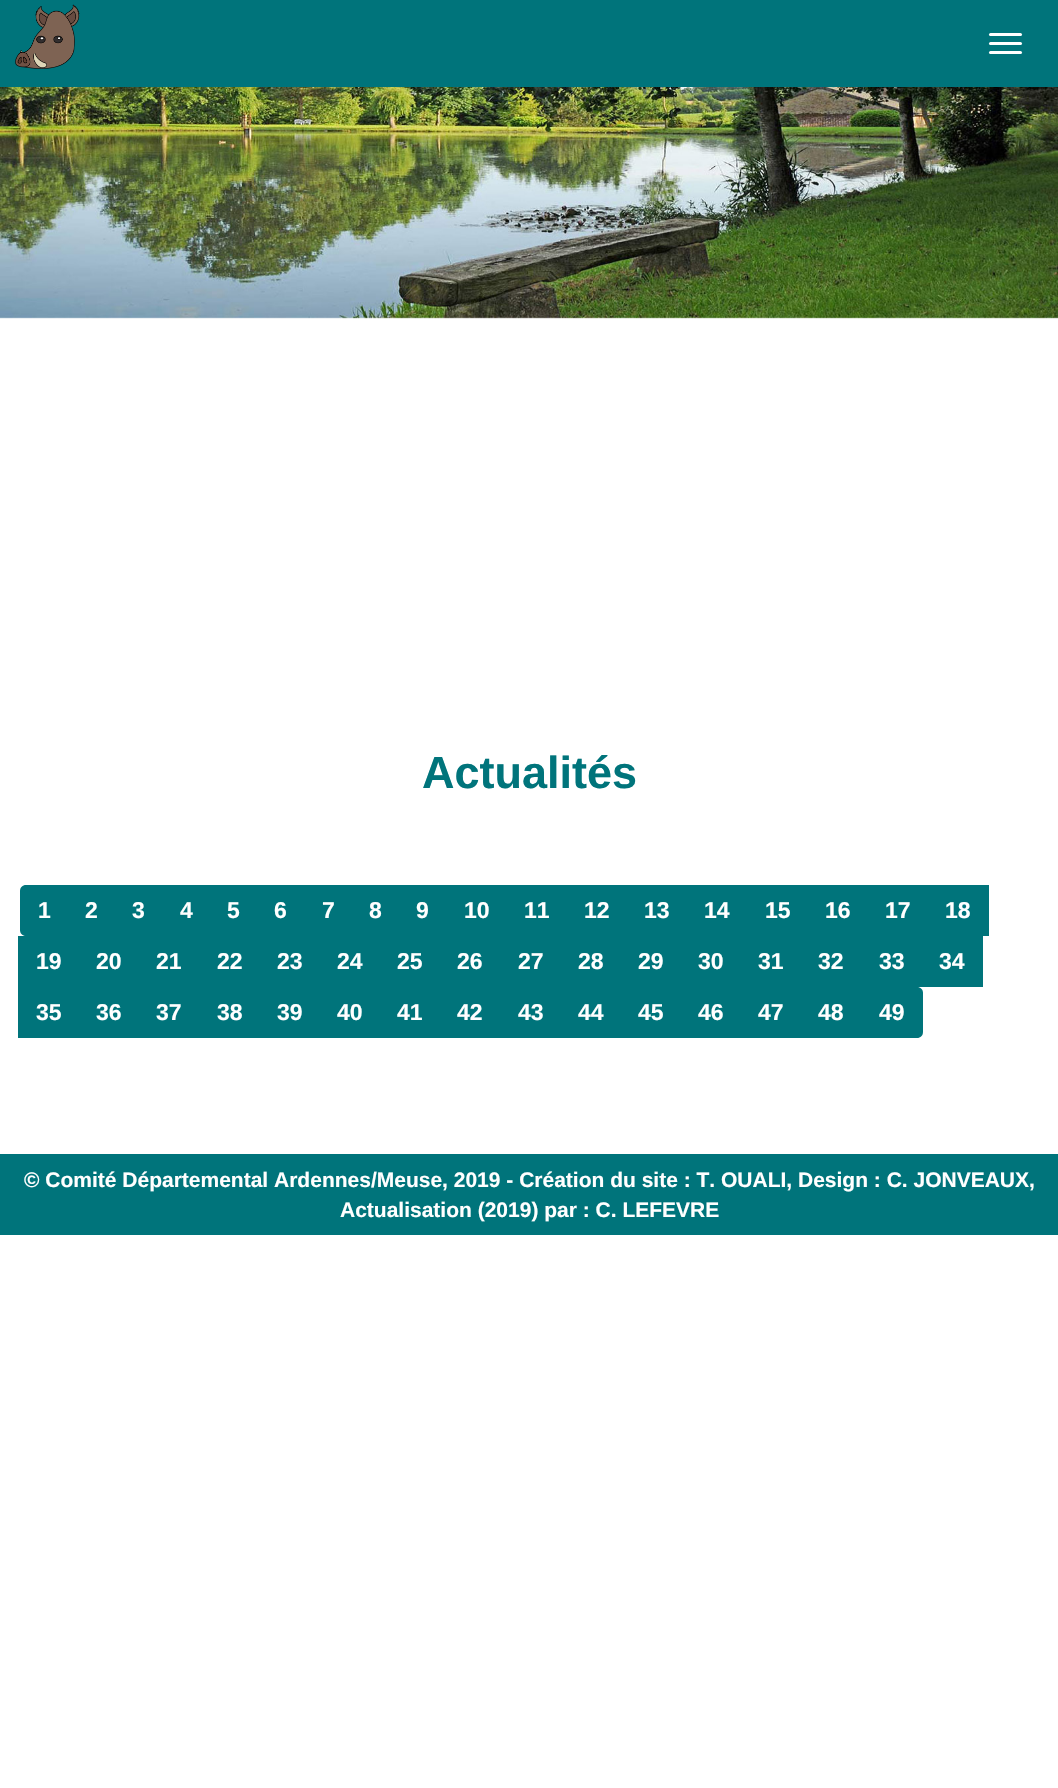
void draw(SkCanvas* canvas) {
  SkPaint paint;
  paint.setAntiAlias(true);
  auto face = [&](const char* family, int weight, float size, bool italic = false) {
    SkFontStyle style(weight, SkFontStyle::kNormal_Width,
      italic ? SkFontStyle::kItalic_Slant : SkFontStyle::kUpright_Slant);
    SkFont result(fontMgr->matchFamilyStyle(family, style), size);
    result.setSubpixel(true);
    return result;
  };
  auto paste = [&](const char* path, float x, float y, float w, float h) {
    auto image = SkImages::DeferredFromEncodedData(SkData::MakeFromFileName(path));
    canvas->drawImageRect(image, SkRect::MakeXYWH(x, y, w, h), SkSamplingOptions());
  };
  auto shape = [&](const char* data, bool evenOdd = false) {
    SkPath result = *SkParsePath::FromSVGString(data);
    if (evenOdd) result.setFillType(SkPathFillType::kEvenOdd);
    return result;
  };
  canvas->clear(0xffffffff);
  paint.setColor(0xff00747b);
  canvas->drawRect(SkRect::MakeXYWH(0, 0, 1058, 87), paint);
  paste("img/1.png", 15, 4, 65, 65);
  paint.setColor(0xffffffff);
  canvas->drawRoundRect(SkRect::MakeXYWH(989, 33, 33, 3), 1.5f, 1.5f, paint);
  canvas->drawRoundRect(SkRect::MakeXYWH(989, 42, 33, 3), 1.5f, 1.5f, paint);
  canvas->drawRoundRect(SkRect::MakeXYWH(989, 51, 33, 3), 1.5f, 1.5f, paint);
  paste("img/2.png", 0, 87, 1058, 232);
  paint.setColor(0xff00747b);
  canvas->drawPath(shape("M26 885H69V936H26C22.5 936 20 933.5 20 930V891C20 887.5 22.5 885 26 885Z"), paint);
  {
    const struct { float x, y, w, h; SkColor color; } items[] = {
      {69, 885, 920, 51, 0xff00747b},
      {18, 936, 965, 51, 0xff00747b},
      {18, 987, 242, 51, 0xff00747b},
      {260, 987, 601, 51, 0xff00747b},
    };
    for (auto [x, y, w, h, color] : items) {
      paint.setColor(color);
      canvas->drawRect(SkRect::MakeXYWH(x, y, w, h), paint);
    }
  }
  canvas->drawPath(shape("M861 987H917C920.5 987 923 989.5 923 993V1032C923 1035.5 920.5 1038 917 1038H861Z"), paint);
  canvas->drawRect(SkRect::MakeXYWH(0, 1154, 1058, 81), paint);
  auto f0 = face("Liberation Sans", 700, 45);
  canvas->drawString("Actualités", 422, 788, f0, paint);
  auto f1 = face("Liberation Sans", 700, 23);
  paint.setColor(0xffffffff);
  {
    const struct { const char* s; float x, y; } items[] = {
      {"1", 38, 918},
      {"2", 85, 918},
      {"3", 132, 918},
      {"4", 180, 918},
      {"5", 227, 918},
      {"6", 274, 918},
      {"7", 322, 918},
      {"8", 369, 918},
      {"9", 416, 918},
      {"10", 464, 918},
      {"11", 524, 918},
      {"12", 584, 918},
      {"13", 644, 918},
      {"14", 704, 918},
      {"15", 765, 918},
      {"16", 825, 918},
      {"17", 885, 918},
      {"18", 945, 918},
      {"19", 36, 969},
      {"20", 96, 969},
      {"21", 156, 969},
      {"22", 217, 969},
      {"23", 277, 969},
      {"24", 337, 969},
      {"25", 397, 969},
      {"26", 457, 969},
      {"27", 518, 969},
      {"28", 578, 969},
      {"29", 638, 969},
      {"30", 698, 969},
      {"31", 758, 969},
      {"32", 818, 969},
      {"33", 879, 969},
      {"34", 939, 969},
      {"35", 36, 1020},
      {"36", 96, 1020},
      {"37", 156, 1020},
      {"38", 217, 1020},
      {"39", 277, 1020},
      {"40", 337, 1020},
      {"41", 397, 1020},
      {"42", 457, 1020},
      {"43", 518, 1020},
      {"44", 578, 1020},
      {"45", 638, 1020},
      {"46", 698, 1020},
      {"47", 758, 1020},
      {"48", 818, 1020},
      {"49", 879, 1020},
    };
    for (auto [s, x, y] : items) {
      canvas->drawString(s, x, y, f1, paint);
    }
  }
  auto f2 = face("Liberation Sans", 700, 21);
  canvas->drawString("© Comité Départemental Ardennes/Meuse, 2019 - Création du site : T. OUALI, Design : C. JONVEAUX,", 24, 1187, f2, paint);
  canvas->drawString("Actualisation (2019) par : C. LEFEVRE", 340, 1217, f2, paint);
}
